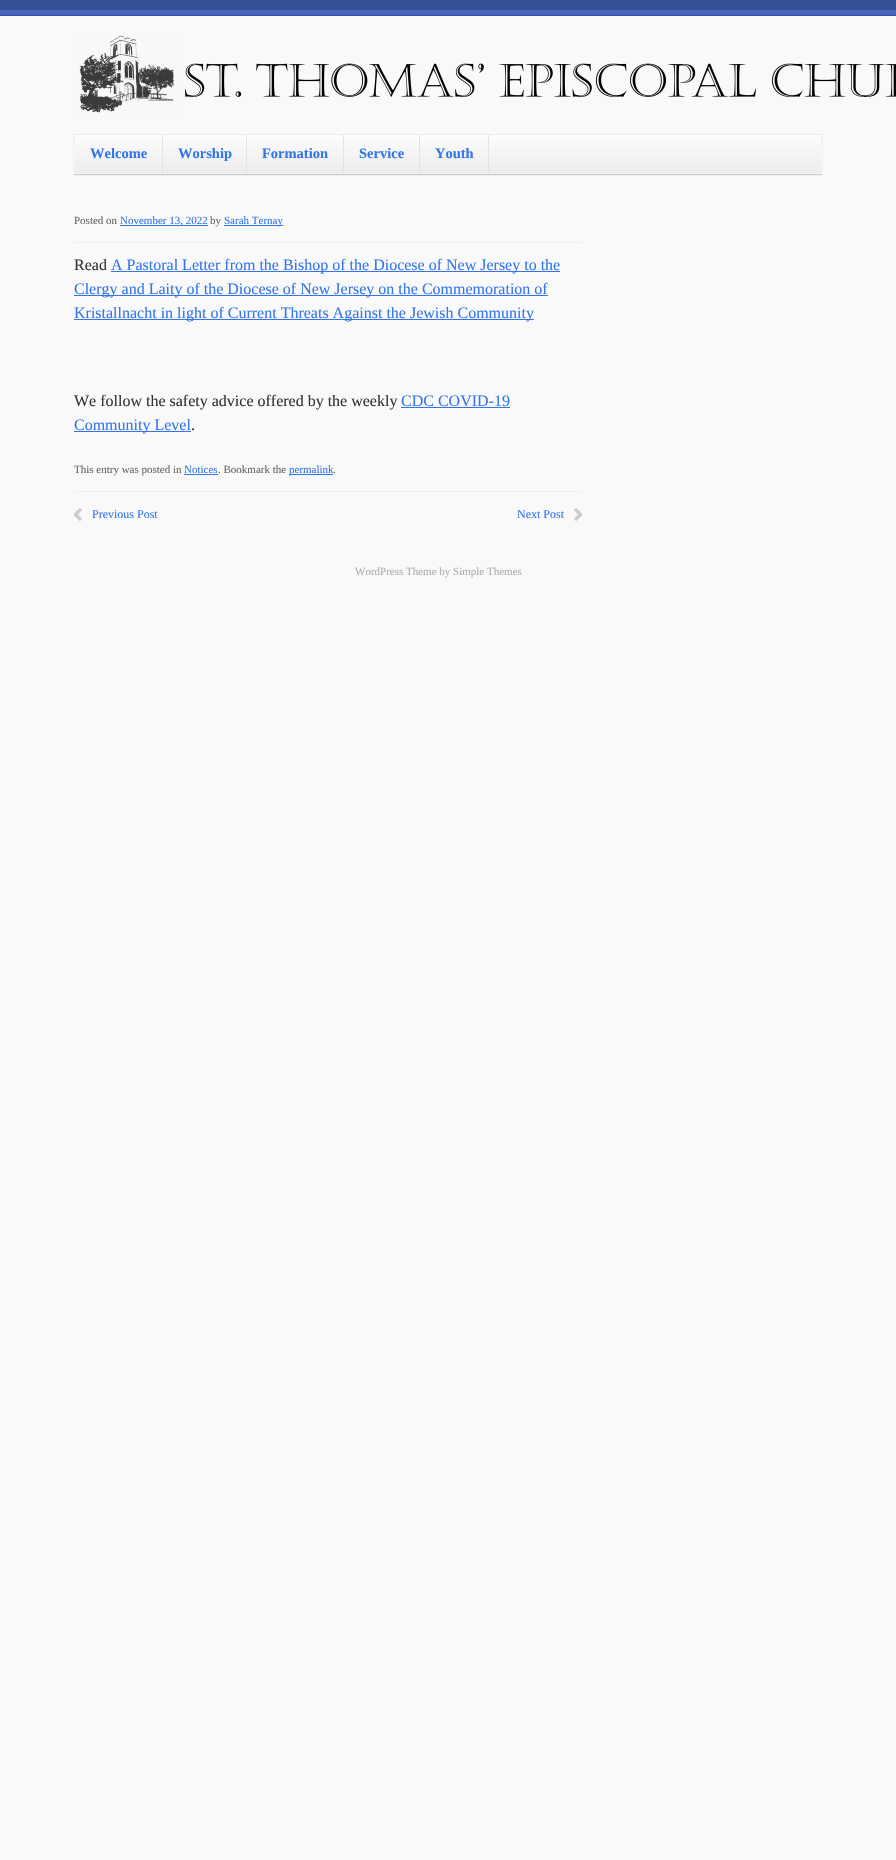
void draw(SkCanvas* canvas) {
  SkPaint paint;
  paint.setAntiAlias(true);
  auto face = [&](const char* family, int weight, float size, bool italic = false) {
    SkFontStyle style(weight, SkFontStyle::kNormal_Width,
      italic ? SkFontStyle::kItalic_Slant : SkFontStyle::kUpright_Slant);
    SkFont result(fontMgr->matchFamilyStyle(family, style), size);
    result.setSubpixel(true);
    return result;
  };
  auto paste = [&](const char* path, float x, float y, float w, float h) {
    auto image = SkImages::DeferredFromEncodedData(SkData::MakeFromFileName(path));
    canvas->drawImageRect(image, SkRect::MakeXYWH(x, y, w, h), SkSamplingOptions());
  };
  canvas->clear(0xfff9f9f9);
  paste("img/1.png", 0, 0, 896, 16);
  paste("img/2.png", 79, 35, 817, 78);
  paint.setColor(0x33000000);
  paint.setMaskFilter(SkMaskFilter::MakeBlur(kNormal_SkBlurStyle, 0.5f));
  canvas->drawRect(SkRect::MakeXYWH(74, 135, 748, 40), paint);
  paint.setMaskFilter(nullptr);
  {
    const SkColor colors[] = {0xfffcfcfc, 0xffececec};
    const float stops[] = {0, 1};
    const SkPoint ends[] = {{448, 135}, {448, 173}};
    paint.setShader(SkGradientShader::MakeLinear(ends, colors, stops, 2, SkTileMode::kClamp));
    paint.setAlpha(255);
  }
  canvas->drawRect(SkRect::MakeXYWH(75, 135, 746, 38), paint);
  paint.setShader(nullptr);
  {
    const struct { float x, y, w, h; SkColor color; } items[] = {
      {74, 134, 748, 1, 0xffeaeaea},
      {821, 134, 1, 40, 0xfff5f5f5},
      {74, 173, 748, 1, 0xfff5f5f5},
      {74, 134, 1, 40, 0xfff5f5f5},
      {162, 135, 1, 38, 0xffe3e3e3},
      {246, 135, 1, 38, 0xffe3e3e3},
      {343, 135, 1, 38, 0xffe3e3e3},
      {419, 135, 1, 38, 0xffe3e3e3},
      {488, 135, 1, 38, 0xffe3e3e3},
      {74, 242, 508, 1, 0xffeeeeee},
      {120, 225, 88, 1, 0xff3376ea},
      {224, 225, 59, 1, 0xff3376ea},
      {111, 271, 449, 1, 0xff3376ea},
      {74, 295, 474, 1, 0xff3376ea},
      {74, 319, 460, 1, 0xff3376ea},
      {401, 407, 109, 1, 0xff3376ea},
      {74, 431, 117, 1, 0xff3376ea},
      {74, 491, 508, 1, 0xffeeeeee},
      {184, 474, 34, 1, 0xff3376ea},
      {289, 474, 44, 1, 0xff3376ea},
    };
    for (auto [x, y, w, h, color] : items) {
      paint.setColor(color);
      canvas->drawRect(SkRect::MakeXYWH(x, y, w, h), paint);
    }
  }
  paste("img/3.png", 74, 508, 8, 13);
  paste("img/4.png", 574, 508, 8, 13);
  auto f0 = face("Liberation Serif", 700, 14.5f);
  {
    const struct { const char* s; float x, y; } items[] = {
      {"Welcome", 90, 158},
      {"Worship", 178, 158},
      {"Formation", 262, 158},
      {"Service", 359, 158},
      {"Youth", 435, 158},
    };
    for (auto [s, x, y] : items) {
      canvas->drawString(s, x, y, f0, paint);
    }
  }
  auto f1 = face("Liberation Serif", 400, 11);
  paint.setColor(0xff666666);
  canvas->drawString("Posted on", 74, 224, f1, paint);
  paint.setColor(0xff3376ea);
  canvas->drawString("November 13, 2022", 120, 224, f1, paint);
  paint.setColor(0xff666666);
  canvas->drawString("by", 210, 224, f1, paint);
  paint.setColor(0xff3376ea);
  canvas->drawString("Sarah Ternay", 224, 224, f1, paint);
  auto f2 = face("Liberation Serif", 400, 16);
  paint.setColor(0xff333333);
  canvas->drawString("Read", 74, 270, f2, paint);
  paint.setColor(0xff3376ea);
  {
    const struct { const char* s; float x, y; } items[] = {
      {"A Pastoral Letter from the Bishop of the Diocese of New Jersey to the", 111, 270},
      {"Clergy and Laity of the Diocese of New Jersey on the Commemoration of", 74, 294},
      {"Kristallnacht in light of Current Threats Against the Jewish Community", 74, 318},
    };
    for (auto [s, x, y] : items) {
      canvas->drawString(s, x, y, f2, paint);
    }
  }
  paint.setColor(0xff333333);
  canvas->drawString("We follow the safety advice offered by the weekly", 74, 406, f2, paint);
  paint.setColor(0xff3376ea);
  canvas->drawString("CDC COVID-19", 401, 406, f2, paint);
  canvas->drawString("Community Level", 74, 430, f2, paint);
  paint.setColor(0xff333333);
  canvas->drawString(".", 191, 430, f2, paint);
  paint.setColor(0xff666666);
  canvas->drawString("This entry was posted in", 74, 473, f1, paint);
  paint.setColor(0xff3376ea);
  canvas->drawString("Notices", 184, 473, f1, paint);
  paint.setColor(0xff666666);
  canvas->drawString(". Bookmark the", 218, 473, f1, paint);
  paint.setColor(0xff3376ea);
  canvas->drawString("permalink", 289, 473, f1, paint);
  paint.setColor(0xff666666);
  canvas->drawString(".", 333, 473, f1, paint);
  auto f3 = face("Liberation Serif", 400, 12);
  paint.setColor(0xff3376ea);
  canvas->drawString("Previous Post", 92, 518, f3, paint);
  canvas->drawString("Next Post", 517, 518, f3, paint);
  paint.setColor(0xffaeaeae);
  canvas->drawString("WordPress Theme by Simple Themes", 355, 575, f1, paint);
}
